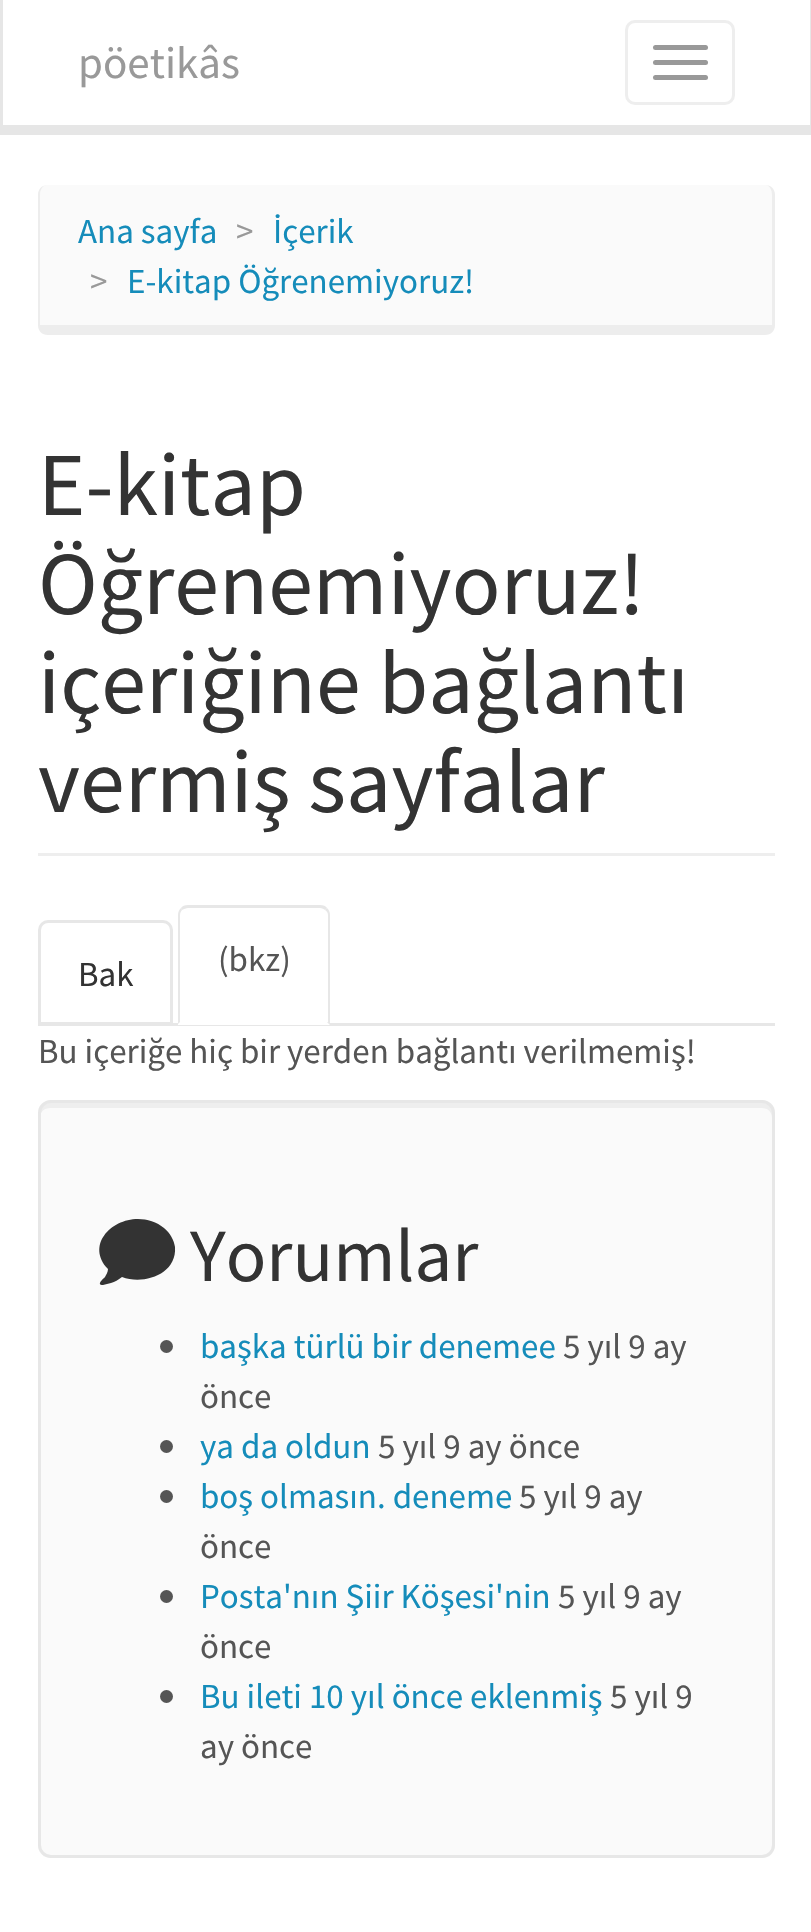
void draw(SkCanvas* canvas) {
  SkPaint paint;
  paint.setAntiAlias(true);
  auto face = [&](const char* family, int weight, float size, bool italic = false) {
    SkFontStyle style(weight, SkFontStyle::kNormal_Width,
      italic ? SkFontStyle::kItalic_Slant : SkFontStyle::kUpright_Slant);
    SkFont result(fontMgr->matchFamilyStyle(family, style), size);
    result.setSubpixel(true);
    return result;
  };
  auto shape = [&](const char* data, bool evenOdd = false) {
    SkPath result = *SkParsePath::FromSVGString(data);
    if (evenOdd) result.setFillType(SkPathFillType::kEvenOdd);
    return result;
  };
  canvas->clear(0xffffffff);
  {
    const struct { float x, y, w, h; SkColor color; } items[] = {
      {810, 0, 1, 125, 0xffe6e6e6},
      {3, 125, 808, 10, 0xffe6e6e6},
      {0, 0, 3, 135, 0xffe6e6e6},
    };
    for (auto [x, y, w, h, color] : items) {
      paint.setColor(color);
      canvas->drawRect(SkRect::MakeXYWH(x, y, w, h), paint);
    }
  }
  paint.setStroke(true);
  paint.setStrokeWidth(3);
  paint.setColor(0xffeeeeee);
  canvas->drawRoundRect(SkRect::MakeXYWH(626.5f, 21.5f, 107, 82), 8.5f, 8.5f, paint);
  paint.setStroke(false);
  paint.setColor(0xff999999);
  canvas->drawRoundRect(SkRect::MakeXYWH(653, 45, 55, 5), 2.5f, 2.5f, paint);
  canvas->drawRoundRect(SkRect::MakeXYWH(653, 60, 55, 5), 2.5f, 2.5f, paint);
  canvas->drawRoundRect(SkRect::MakeXYWH(653, 75, 55, 5), 2.5f, 2.5f, paint);
  paint.setColor(0xfffafafa);
  canvas->drawPath(shape("M48 185H765C769 185 772 189 772 195V325H40V195C40 189 43 185 48 185Z"), paint);
  paint.setColor(0xffededed);
  canvas->drawPath(shape("M48 185H765C771 185 775 189 775 195V325C775 331 771 335 765 335H48C42 335 38 331 38 325V195C38 189 42 185 48 185ZM48 185H765C769 185 772 189 772 195V325H40V195C40 189 43 185 48 185Z", true), paint);
  paint.setColor(0xffeeeeee);
  canvas->drawRect(SkRect::MakeXYWH(38, 853, 737, 3), paint);
  paint.setColor(0xffe7e7e7);
  canvas->drawRect(SkRect::MakeXYWH(38, 1023, 737, 3), paint);
  paint.setStroke(true);
  canvas->drawPath(shape("M48 921.5H163C167.5 921.5 171.5 925.5 171.5 930V1023.5H39.5V930C39.5 925.5 43.5 921.5 48 921.5Z"), paint);
  paint.setStroke(false);
  paint.setColor(0xffffffff);
  canvas->drawPath(shape("M188 905H320C325.5 905 330 909.5 330 915V1025H178V915C178 909.5 182.5 905 188 905Z"), paint);
  paint.setColor(0xffe7e7e7);
  canvas->drawPath(shape("M188 905C185 905 182 906 181 908L182 910C184 909 186 908 188 908H320C322 908 324 909 325 910L327 908C326 906 323 905 320 905Z"), paint);
  canvas->drawPath(shape("M330 1025V915C330 912 329 910 327 908L325 910C327 911 328 913 328 915V1022H327Z"), paint);
  canvas->drawPath(shape("M181 908C179 910 178 912 178 915V1024L180 1022V915C180 913 181 911 182 910Z"), paint);
  paint.setColor(0xfffafafa);
  canvas->drawRoundRect(SkRect::MakeXYWH(38, 1100, 737, 758), 13, 13, paint);
  paint.setColor(0xffeeeeee);
  canvas->drawPath(shape("M50 1108H762C768 1108 772 1112 772 1118V1849L773 1845V1113C773 1107 769 1103 763 1103H50C44 1103 40 1107 40 1113V1118C40 1112 44 1108 50 1108Z"), paint);
  paint.setStroke(true);
  paint.setColor(0xffe7e7e7);
  canvas->drawRoundRect(SkRect::MakeXYWH(39.5f, 1101.5f, 734, 755), 11.5f, 11.5f, paint);
  paint.setStroke(false);
  paint.setColor(0xff333333);
  canvas->drawPath(shape("M138 1219C110 1219 86 1246 108 1269C108 1272 106 1275 105 1277C103 1279 96 1285 103 1285L111 1283C115 1282 118 1280 122 1277C143 1285 177 1275 175 1247C174 1240 170 1233 164 1228C157 1222 147 1219 138 1219Z"), paint);
  paint.setColor(0xff555555);
  canvas->drawCircle(166.5f, 1346.5f, 6.5f, paint);
  canvas->drawCircle(166.5f, 1446.5f, 6.5f, paint);
  canvas->drawCircle(166.5f, 1496.5f, 6.5f, paint);
  canvas->drawCircle(166.5f, 1596.5f, 6.5f, paint);
  canvas->drawCircle(166.5f, 1696.5f, 6.5f, paint);
  auto f0 = face("Source Sans Pro", 400, 45);
  paint.setColor(0xff999999);
  canvas->drawString("pöetikâs", 78, 78, f0, paint);
  auto f1 = face("Source Sans Pro", 400, 35);
  paint.setColor(0xff158cba);
  canvas->drawString("Ana sayfa", 78, 243, f1, paint);
  paint.setColor(0xff999999);
  canvas->drawString(">", 236, 243, f1, paint);
  paint.setColor(0xff158cba);
  canvas->drawString("İçerik", 273, 243, f1, paint);
  paint.setColor(0xff999999);
  canvas->drawString(">", 90, 293, f1, paint);
  paint.setColor(0xff158cba);
  canvas->drawString("E-kitap Öğrenemiyoruz!", 127, 293, f1, paint);
  auto f2 = face("Source Sans Pro", 400, 90);
  paint.setColor(0xff333333);
  {
    const struct { const char* s; float x, y; } items[] = {
      {"E-kitap", 38, 515},
      {"Öğrenemiyoruz!", 38, 614},
      {"içeriğine bağlantı", 38, 713},
      {"vermiş sayfalar", 38, 812},
    };
    for (auto [s, x, y] : items) {
      canvas->drawString(s, x, y, f2, paint);
    }
  }
  canvas->drawString("Bak", 78, 986, f1, paint);
  paint.setColor(0xff555555);
  canvas->drawString("(bkz)", 218, 971, f1, paint);
  canvas->drawString("Bu içeriğe hiç bir yerden bağlantı verilmemiş!", 38, 1063, f1, paint);
  auto f3 = face("Source Sans Pro", 400, 75);
  paint.setColor(0xff333333);
  canvas->drawString("Yorumlar", 190, 1281, f3, paint);
  paint.setColor(0xff158cba);
  canvas->drawString("başka türlü bir denemee", 200, 1358, f1, paint);
  paint.setColor(0xff555555);
  canvas->drawString("5 yıl 9 ay", 563, 1358, f1, paint);
  canvas->drawString("önce", 200, 1408, f1, paint);
  paint.setColor(0xff158cba);
  canvas->drawString("ya da oldun", 200, 1458, f1, paint);
  paint.setColor(0xff555555);
  canvas->drawString("5 yıl 9 ay önce", 378, 1458, f1, paint);
  paint.setColor(0xff158cba);
  canvas->drawString("boş olmasın. deneme", 200, 1508, f1, paint);
  paint.setColor(0xff555555);
  canvas->drawString("5 yıl 9 ay", 519, 1508, f1, paint);
  canvas->drawString("önce", 200, 1558, f1, paint);
  paint.setColor(0xff158cba);
  canvas->drawString("Posta'nın Şiir Köşesi'nin", 200, 1608, f1, paint);
  paint.setColor(0xff555555);
  canvas->drawString("5 yıl 9 ay", 558, 1608, f1, paint);
  canvas->drawString("önce", 200, 1658, f1, paint);
  paint.setColor(0xff158cba);
  canvas->drawString("Bu ileti 10 yıl önce eklenmiş", 200, 1708, f1, paint);
  paint.setColor(0xff555555);
  canvas->drawString("5 yıl 9", 610, 1708, f1, paint);
  canvas->drawString("ay önce", 200, 1758, f1, paint);
}
